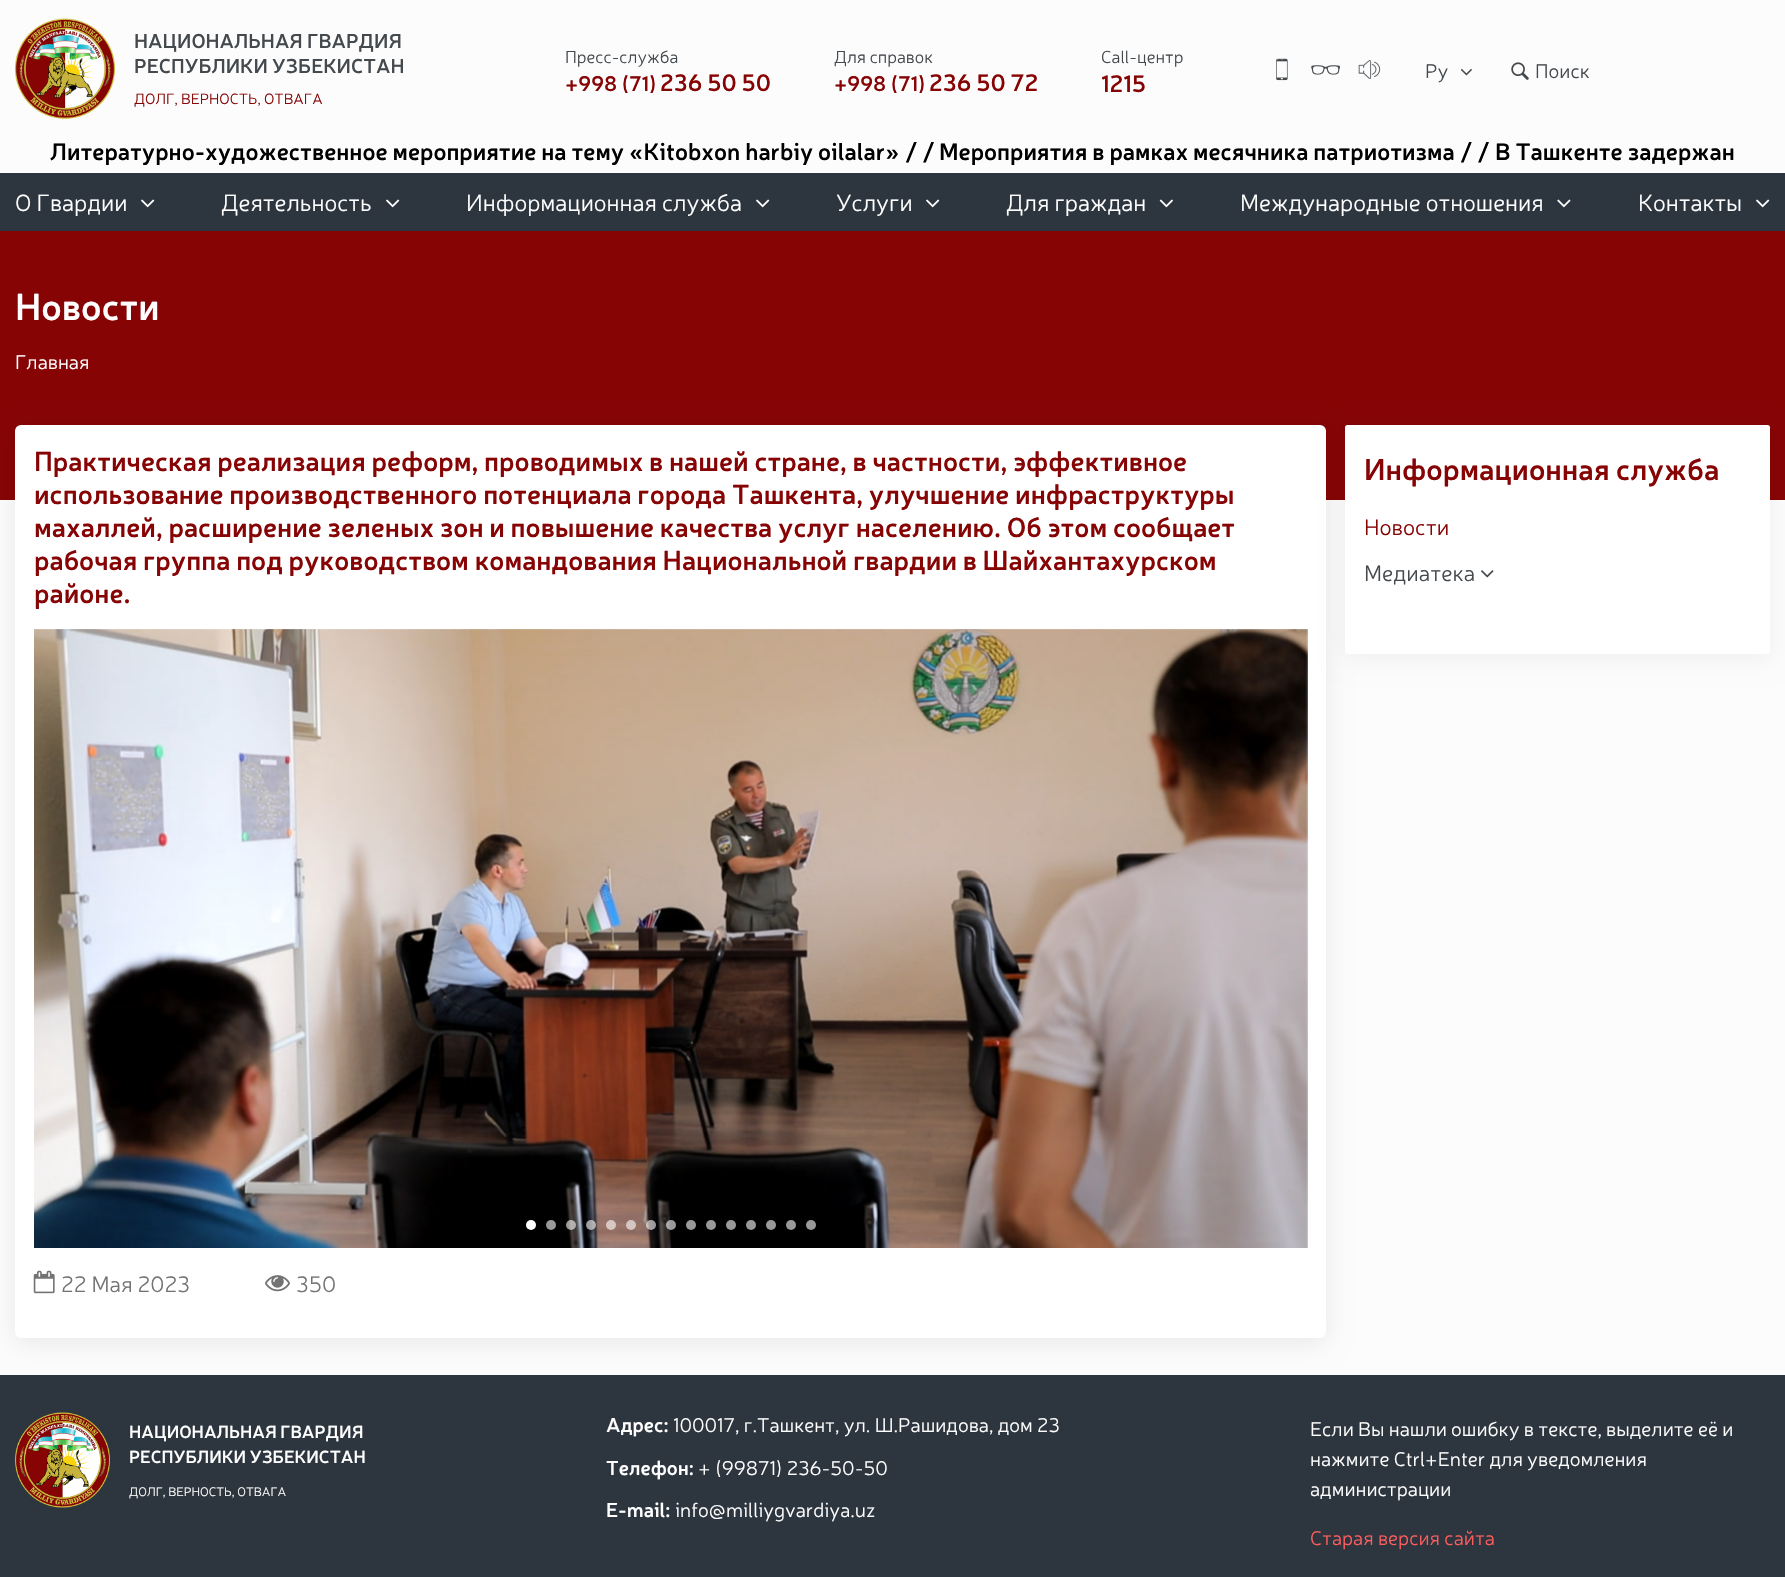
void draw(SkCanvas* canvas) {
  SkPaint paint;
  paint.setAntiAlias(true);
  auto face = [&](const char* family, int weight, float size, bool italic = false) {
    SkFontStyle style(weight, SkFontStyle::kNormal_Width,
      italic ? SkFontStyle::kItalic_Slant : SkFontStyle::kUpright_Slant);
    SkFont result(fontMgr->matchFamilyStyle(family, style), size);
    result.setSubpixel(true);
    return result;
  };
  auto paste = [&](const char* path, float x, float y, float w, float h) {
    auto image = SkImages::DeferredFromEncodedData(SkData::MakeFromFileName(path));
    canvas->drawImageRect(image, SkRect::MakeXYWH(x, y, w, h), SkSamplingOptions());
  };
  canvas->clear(0xfffcfcfc);
  paste("img/1.png", 15, 18, 100, 101);
  paste("img/2.png", 1276, 58, 12, 23);
  paste("img/3.png", 1311, 65, 29, 10);
  paste("img/4.png", 1358, 60, 23, 19);
  paste("img/5.png", 1460, 68, 12, 8);
  paste("img/6.png", 1511, 62, 18, 18);
  paint.setColor(0xff2d353e);
  canvas->drawRect(SkRect::MakeXYWH(0, 173, 1785, 58), paint);
  paste("img/7.png", 141, 199, 14, 9);
  paste("img/7.png", 386, 199, 14, 9);
  paste("img/7.png", 756, 199, 14, 9);
  paste("img/7.png", 926, 199, 14, 9);
  paste("img/8.png", 1159, 199, 14, 9);
  paste("img/9.png", 1557, 199, 14, 9);
  paste("img/7.png", 1756, 199, 14, 9);
  paint.setColor(0xff870405);
  canvas->drawRect(SkRect::MakeXYWH(0, 231, 1785, 269), paint);
  paint.setColor(0xff2d353e);
  canvas->drawRect(SkRect::MakeXYWH(0, 1375, 1785, 202), paint);
  paint.setColor(0x14000000);
  paint.setMaskFilter(SkMaskFilter::MakeBlur(kNormal_SkBlurStyle, 12.5f));
  canvas->drawRoundRect(SkRect::MakeXYWH(15, 430, 1311, 913), 6, 6, paint);
  paint.setMaskFilter(nullptr);
  paint.setColor(0xffffffff);
  canvas->drawRoundRect(SkRect::MakeXYWH(15, 425, 1311, 913), 6, 6, paint);
  paint.setColor(0x0d000000);
  paint.setMaskFilter(SkMaskFilter::MakeBlur(kNormal_SkBlurStyle, 12.5f));
  canvas->drawRoundRect(SkRect::MakeXYWH(1345, 430, 425, 229), 2.5f, 2.5f, paint);
  paint.setMaskFilter(nullptr);
  paste("img/10.png", 34, 629, 1274, 619);
  paint.setColor(0xffffffff);
  canvas->drawCircle(531, 1225, 5, paint);
  paint.setColor(0xff999999);
  canvas->drawCircle(551, 1225, 5, paint);
  paint.setColor(0x99ffffff);
  canvas->drawCircle(571, 1225, 5, paint);
  canvas->drawCircle(591, 1225, 5, paint);
  canvas->drawCircle(611, 1225, 5, paint);
  canvas->drawCircle(631, 1225, 5, paint);
  canvas->drawCircle(651, 1225, 5, paint);
  canvas->drawCircle(671, 1225, 5, paint);
  paint.setColor(0xff999999);
  canvas->drawCircle(691, 1225, 5, paint);
  canvas->drawCircle(711, 1225, 5, paint);
  canvas->drawCircle(731, 1225, 5, paint);
  canvas->drawCircle(751, 1225, 5, paint);
  canvas->drawCircle(771, 1225, 5, paint);
  canvas->drawCircle(791, 1225, 5, paint);
  canvas->drawCircle(811, 1225, 5, paint);
  paste("img/11.png", 33, 1270, 22, 24);
  paste("img/12.png", 265, 1275, 25, 17);
  paint.setColor(0xffffffff);
  canvas->drawRoundRect(SkRect::MakeXYWH(1345, 425, 425, 229), 2.5f, 2.5f, paint);
  paste("img/13.png", 1481, 570, 13, 8);
  paste("img/14.png", 15, 1412, 95, 96);
  auto f0 = face("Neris", 600, 20);
  paint.setColor(0xff44494e);
  canvas->drawString("НАЦИОНАЛЬНАЯ ГВАРДИЯ", 134, 48, f0, paint);
  canvas->drawString("РЕСПУБЛИКИ УЗБЕКИСТАН", 134, 73, f0, paint);
  auto f1 = face("Neris", 300, 15);
  paint.setColor(0xff870405);
  canvas->drawString("ДОЛГ, ВЕРНОСТЬ, ОТВАГА", 134, 104, f1, paint);
  auto f2 = face("Neris", 300, 17.5f);
  paint.setColor(0xff44494e);
  canvas->drawString("Пресс-служба", 565, 63, f2, paint);
  auto f3 = face("Neris", 600, 21);
  paint.setColor(0xff870405);
  canvas->drawString("+998 (71)", 565, 91, f3, paint);
  auto f4 = face("Neris", 600, 23.75f);
  canvas->drawString("236 50 50", 660, 91, f4, paint);
  paint.setColor(0xff44494e);
  canvas->drawString("Для справок", 834, 63, f2, paint);
  paint.setColor(0xff870405);
  canvas->drawString("+998 (71)", 834, 91, f3, paint);
  canvas->drawString("236 50 72", 929, 91, f4, paint);
  paint.setColor(0xff44494e);
  canvas->drawString("Call-центр", 1101, 63, f2, paint);
  paint.setColor(0xff870405);
  canvas->drawString("1215", 1101, 92, f4, paint);
  auto f5 = face("Neris", 300, 20);
  paint.setColor(0xff44494e);
  canvas->drawString("Ру", 1425, 78, f5, paint);
  canvas->drawString("Поиск", 1535, 78, f5, paint);
  canvas->save();
  canvas->clipRect(SkRect::MakeXYWH(0, 138, 1785, 27));
  paint.setColor(0xff000000);
  canvas->drawString("Литературно-художественное мероприятие на тему «Kitobxon harbiy oilalar»", 50, 160, f4, paint);
  canvas->restore();
  canvas->drawString("/ /", 905, 160, f4, paint);
  canvas->save();
  canvas->clipRect(SkRect::MakeXYWH(0, 138, 1785, 27));
  canvas->drawString("Мероприятия в рамках месячника патриотизма", 939, 160, f4, paint);
  canvas->restore();
  canvas->drawString("/ /", 1460, 160, f4, paint);
  canvas->save();
  canvas->clipRect(SkRect::MakeXYWH(0, 138, 1785, 27));
  canvas->drawString("В Ташкенте задержан", 1495, 160, f4, paint);
  canvas->restore();
  auto f6 = face("Neris", 300, 23.75f);
  paint.setColor(0xffffffff);
  {
    const struct { const char* s; float x, y; } items[] = {
      {"О Гвардии", 15, 211},
      {"Деятельность", 221, 211},
      {"Информационная служба", 466, 211},
      {"Услуги", 836, 211},
      {"Для граждан", 1006, 211},
      {"Международные отношения", 1240, 211},
      {"Контакты", 1638, 211},
    };
    for (auto [s, x, y] : items) {
      canvas->drawString(s, x, y, f6, paint);
    }
  }
  auto f7 = face("Neris", 600, 37.5f);
  canvas->drawString("Новости", 15, 320, f7, paint);
  canvas->drawString("Главная", 15, 369, f5, paint);
  auto f8 = face("Neris", 600, 27.5f);
  paint.setColor(0xff870405);
  {
    const struct { const char* s; float x, y; } items[] = {
      {"Практическая реализация реформ, проводимых в нашей стране, в частности, эффективное", 34, 471},
      {"использование производственного потенциала города Ташкента, улучшение инфраструктуры", 34, 504},
      {"махаллей, расширение зеленых зон и повышение качества услуг населению. Об этом сообщает", 34, 537},
      {"рабочая группа под руководством командования Национальной гвардии в Шайхантахурском", 34, 570},
      {"районе.", 34, 603},
    };
    for (auto [s, x, y] : items) {
      canvas->drawString(s, x, y, f8, paint);
    }
  }
  auto f9 = face("Neris", 300, 22.5f);
  paint.setColor(0xff737373);
  canvas->drawString("22 Мая 2023", 61, 1292, f9, paint);
  canvas->drawString("350", 296, 1292, f9, paint);
  auto f10 = face("Neris", 600, 30);
  paint.setColor(0xff870405);
  canvas->drawString("Информационная служба", 1364, 480, f10, paint);
  canvas->drawString("Новости", 1364, 535, f9, paint);
  paint.setColor(0xff44494e);
  canvas->drawString("Медиатека", 1364, 581, f9, paint);
  auto f11 = face("Neris", 600, 17.5f);
  paint.setColor(0xffffffff);
  canvas->drawString("НАЦИОНАЛЬНАЯ ГВАРДИЯ", 129, 1438, f11, paint);
  canvas->drawString("РЕСПУБЛИКИ УЗБЕКИСТАН", 129, 1463, f11, paint);
  auto f12 = face("Neris", 300, 12.5f);
  canvas->drawString("ДОЛГ, ВЕРНОСТЬ, ОТВАГА", 129, 1496, f12, paint);
  canvas->drawString("Адрес:", 606, 1432, f0, paint);
  canvas->drawString("100017, г.Ташкент, ул. Ш.Рашидова, дом 23", 673, 1432, f5, paint);
  canvas->drawString("Телефон:", 606, 1475, f0, paint);
  canvas->drawString("+ (99871) 236-50-50", 698, 1475, f5, paint);
  canvas->drawString("E-mail:", 606, 1517, f0, paint);
  {
    const struct { const char* s; float x, y; } items[] = {
      {"info@milliygvardiya.uz", 675, 1517},
      {"Если Вы нашли ошибку в тексте, выделите её и", 1310, 1436},
      {"нажмите Ctrl+Enter для уведомления", 1310, 1466},
      {"администрации", 1310, 1496},
    };
    for (auto [s, x, y] : items) {
      canvas->drawString(s, x, y, f5, paint);
    }
  }
  paint.setColor(0xffff5d5f);
  canvas->drawString("Старая версия сайта", 1310, 1545, f5, paint);
}
